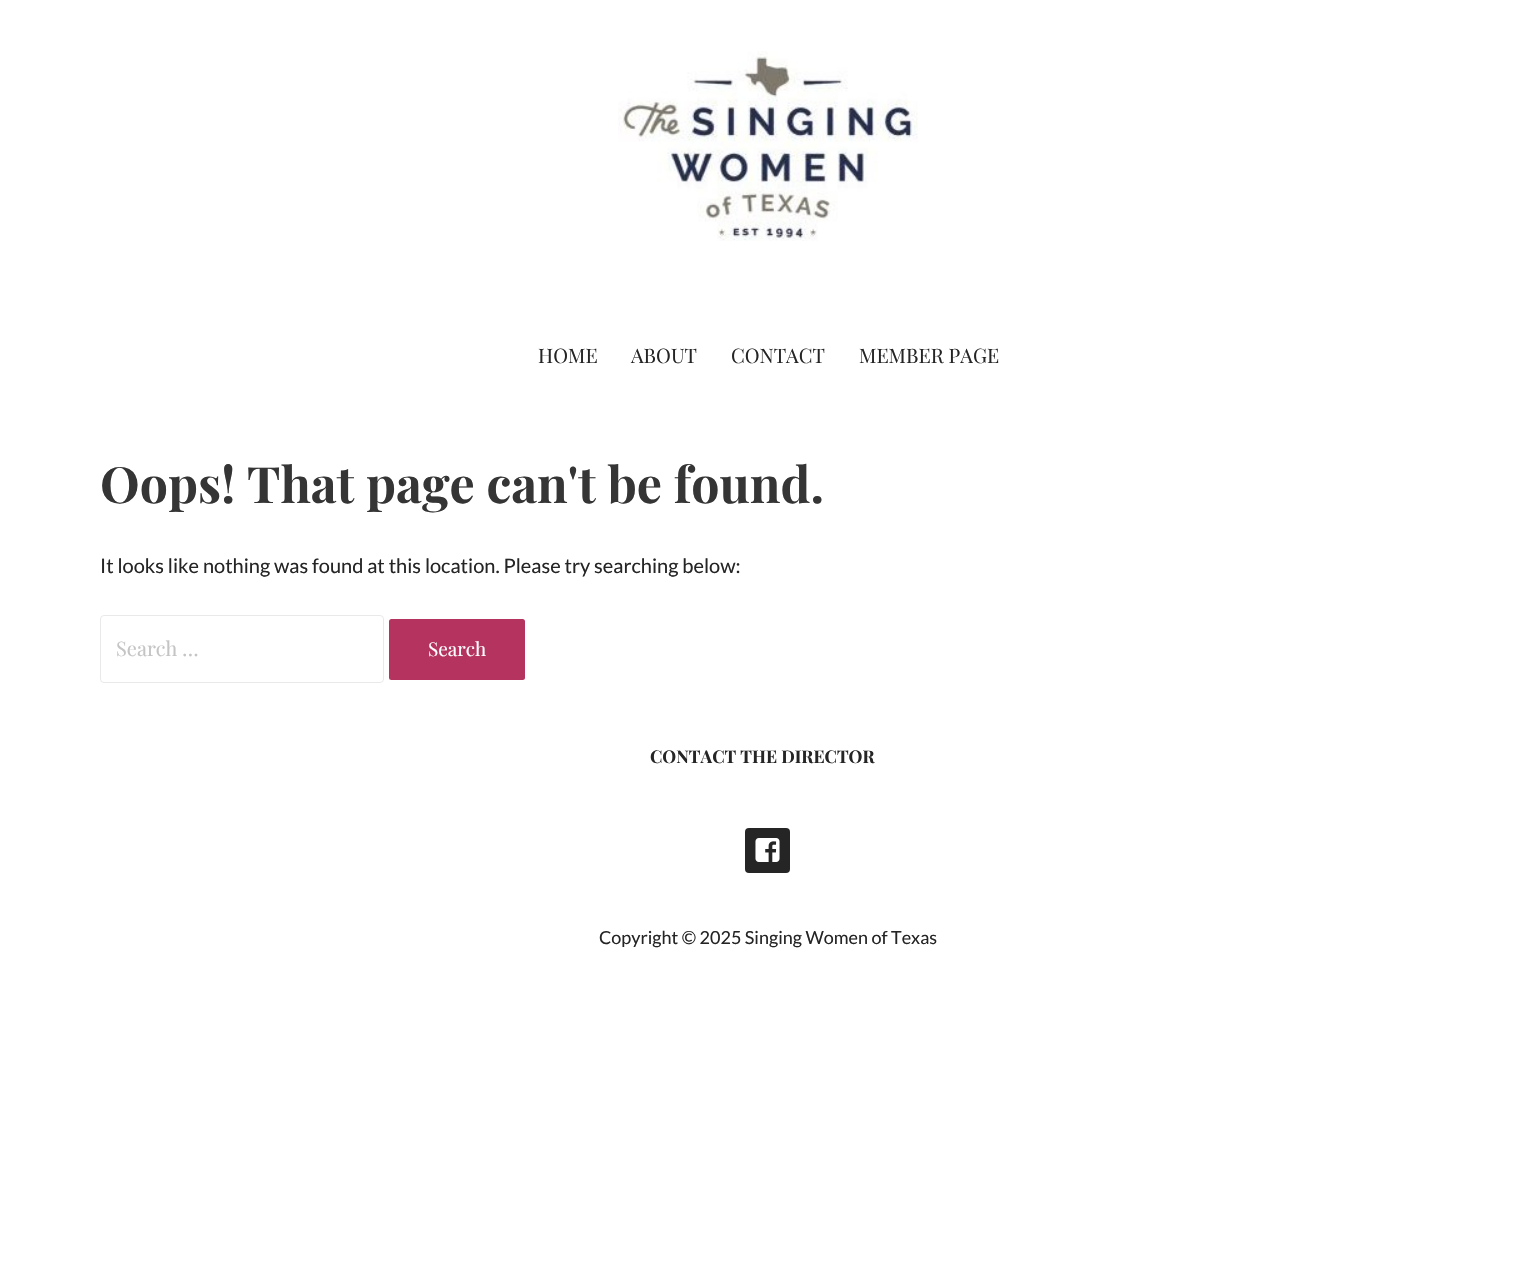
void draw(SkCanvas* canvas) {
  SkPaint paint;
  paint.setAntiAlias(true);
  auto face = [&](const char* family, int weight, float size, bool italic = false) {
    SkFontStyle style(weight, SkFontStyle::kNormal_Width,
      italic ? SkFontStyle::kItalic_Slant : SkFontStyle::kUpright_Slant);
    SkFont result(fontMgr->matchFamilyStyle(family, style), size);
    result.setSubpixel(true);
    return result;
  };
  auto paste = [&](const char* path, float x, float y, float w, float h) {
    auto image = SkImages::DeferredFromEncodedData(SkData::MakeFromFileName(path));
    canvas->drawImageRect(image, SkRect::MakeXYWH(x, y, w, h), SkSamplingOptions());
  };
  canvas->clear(0xffffffff);
  paste("img/1.png", 618, 51, 300, 190);
  paint.setStroke(true);
  paint.setStrokeWidth(1);
  paint.setColor(0xffe9e9e9);
  canvas->drawRoundRect(SkRect::MakeXYWH(100.5f, 615.5f, 283, 67), 3.5f, 3.5f, paint);
  paint.setStroke(false);
  paint.setColor(0xffb5345f);
  canvas->drawRoundRect(SkRect::MakeXYWH(389, 619, 136, 61), 2.5f, 2.5f, paint);
  paint.setColor(0xff252525);
  canvas->drawRoundRect(SkRect::MakeXYWH(745, 828, 45, 45), 4, 4, paint);
  paste("img/2.png", 755, 838, 25, 24);
  auto f0 = face("Playfair Display", 400, 20);
  {
    const struct { const char* s; float x, y; } items[] = {
      {"HOME", 538, 363},
      {"ABOUT", 631, 363},
      {"CONTACT", 731, 363},
      {"MEMBER PAGE", 859, 363},
    };
    for (auto [s, x, y] : items) {
      canvas->drawString(s, x, y, f0, paint);
    }
  }
  auto f1 = face("Playfair Display", 700, 50);
  paint.setColor(0xff353535);
  canvas->drawString("Oops! That page can't be found.", 100, 503, f1, paint);
  auto f2 = face("Lato", 400, 20);
  paint.setColor(0xff252525);
  canvas->drawString("It looks like nothing was found at this location. Please try searching below:", 100, 573, f2, paint);
  paint.setColor(0xffc4c4c4);
  canvas->drawString("Search …", 116, 656, f0, paint);
  auto f3 = face("Playfair Display", 400, 19);
  paint.setColor(0xffffffff);
  canvas->drawString("Search", 428, 656, f3, paint);
  auto f4 = face("Playfair Display", 700, 17.5f);
  paint.setColor(0xff252525);
  canvas->drawString("CONTACT THE DIRECTOR", 650, 763, f4, paint);
  auto f5 = face("Lato", 400, 18);
  canvas->drawString("Copyright © 2025 Singing Women of Texas", 599, 944, f5, paint);
}
